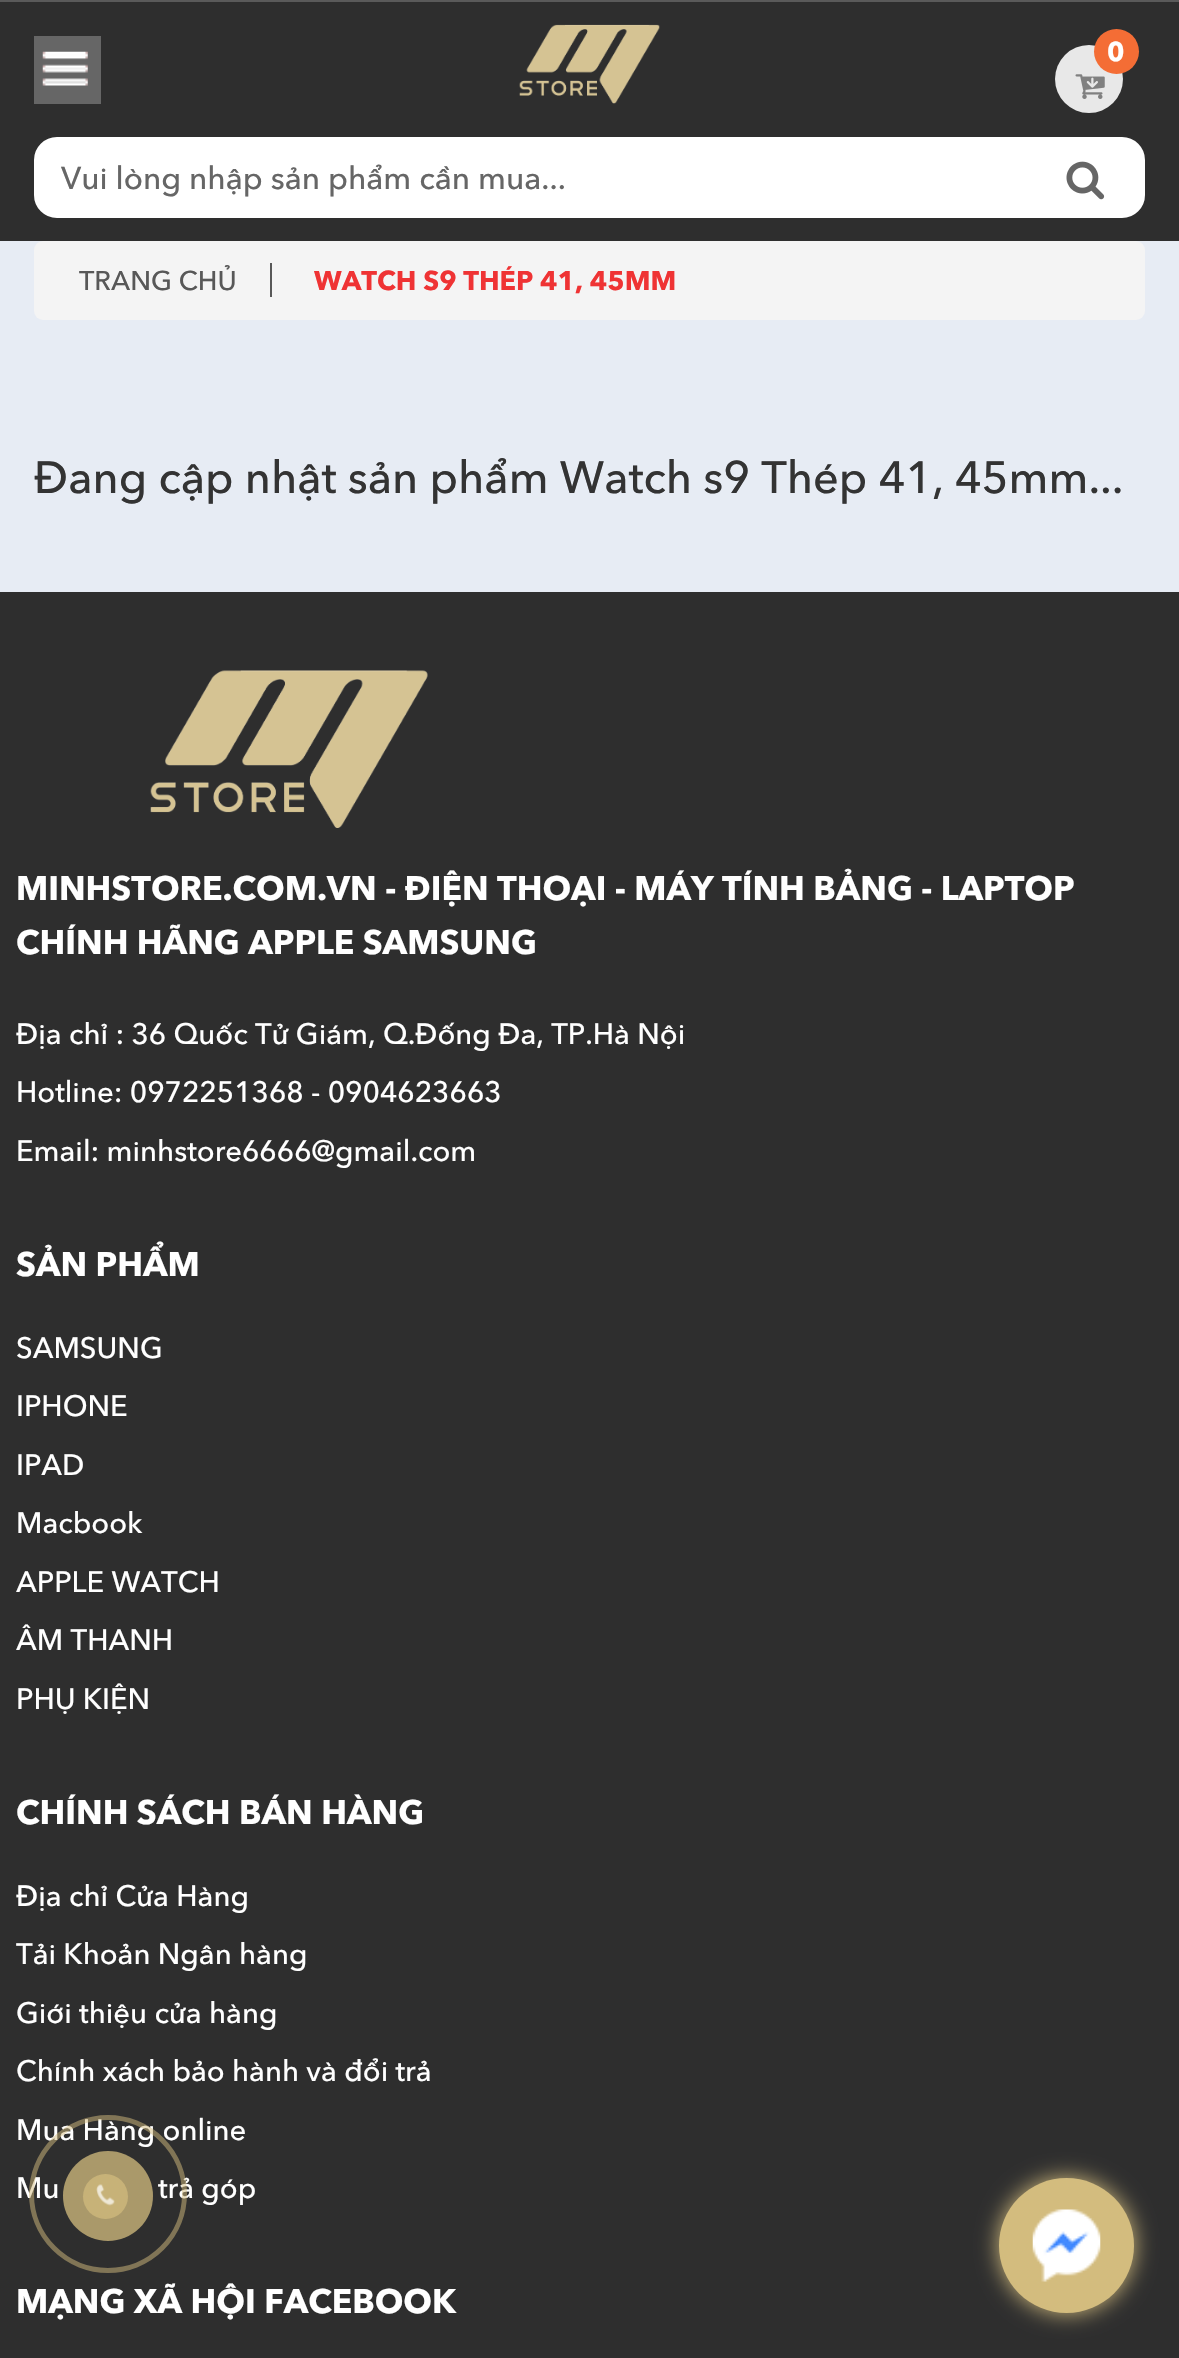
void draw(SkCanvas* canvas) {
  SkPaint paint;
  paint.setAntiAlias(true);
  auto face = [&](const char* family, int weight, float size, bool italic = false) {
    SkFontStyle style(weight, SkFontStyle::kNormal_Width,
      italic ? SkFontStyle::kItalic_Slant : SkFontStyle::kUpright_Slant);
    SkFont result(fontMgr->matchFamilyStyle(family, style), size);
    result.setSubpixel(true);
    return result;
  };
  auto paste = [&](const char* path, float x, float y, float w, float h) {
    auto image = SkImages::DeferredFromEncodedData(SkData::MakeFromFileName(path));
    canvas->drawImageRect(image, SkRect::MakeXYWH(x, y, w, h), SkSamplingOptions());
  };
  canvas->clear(0xffe7ecf4);
  {
    const struct { float x, y, w, h; SkColor color; } items[] = {
      {0, 2, 1179, 239, 0xff2e2e2e},
      {0, 0, 1179, 2, 0xff5a5a5a},
      {34, 36, 67, 68, 0xff666666},
    };
    for (auto [x, y, w, h, color] : items) {
      paint.setColor(color);
      canvas->drawRect(SkRect::MakeXYWH(x, y, w, h), paint);
    }
  }
  paste("img/1.png", 42, 51, 46, 35);
  paste("img/2.png", 519, 24, 141, 80);
  paint.setColor(0xffe8e8e8);
  canvas->drawCircle(1089, 79, 34, paint);
  paint.setColor(0xfff46d35);
  canvas->drawCircle(1116.5f, 51.5f, 22.5f, paint);
  paste("img/3.png", 1075, 74, 30, 25);
  paint.setColor(0xffffffff);
  canvas->drawRoundRect(SkRect::MakeXYWH(36.5f, 139.5f, 1106, 76), 20.5f, 20.5f, paint);
  paint.setStroke(true);
  paint.setStrokeWidth(5);
  canvas->drawRoundRect(SkRect::MakeXYWH(36.5f, 139.5f, 1106, 76), 20.5f, 20.5f, paint);
  paste("img/4.png", 1066, 161, 39, 39);
  paint.setStroke(false);
  paint.setColor(0xfff4f4f4);
  canvas->drawRoundRect(SkRect::MakeXYWH(34, 241, 1111, 79), 9, 9, paint);
  paint.setColor(0xff585858);
  canvas->drawRect(SkRect::MakeXYWH(270, 263, 2, 34), paint);
  paint.setColor(0xff2e2e2e);
  canvas->drawRect(SkRect::MakeXYWH(0, 592, 1179, 1766), paint);
  paste("img/5.png", 150, 670, 278, 158);
  paint.setColor(0xffd3bc7e);
  paint.setMaskFilter(SkMaskFilter::MakeBlur(kNormal_SkBlurStyle, 11));
  canvas->drawRoundRect(SkRect::MakeXYWH(999, 2178, 135, 135), 67.5f, 67.5f, paint);
  paint.setMaskFilter(nullptr);
  canvas->drawCircle(1066.5f, 2245.5f, 67.5f, paint);
  paste("img/7.png", 1032, 2209, 69, 73);
  auto f0 = face("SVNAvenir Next", 700, 27);
  paint.setColor(0xffffffff);
  canvas->drawString("0", 1107, 61, f0, paint);
  auto f1 = face("SVNAvenir Next", 500, 31.5f);
  paint.setColor(0xff666666);
  canvas->drawString("Vui lòng nhập sản phẩm cần mua...", 61, 189, f1, paint);
  auto f2 = face("SVNAvenir Next", 500, 27);
  paint.setColor(0xff585858);
  canvas->drawString("TRANG CHỦ", 79, 290, f2, paint);
  paint.setColor(0xffef3334);
  canvas->drawString("WATCH S9 THÉP 41, 45MM", 314, 290, f0, paint);
  auto f3 = face("SVNAvenir Next", 500, 45);
  paint.setColor(0xff333333);
  canvas->drawString("Đang cập nhật sản phẩm Watch s9 Thép 41, 45mm...", 34, 493, f3, paint);
  auto f4 = face("SVNAvenir Next", 700, 33.75f);
  paint.setColor(0xffffffff);
  canvas->drawString("MINHSTORE.COM.VN - ĐIỆN THOẠI - MÁY TÍNH BẢNG - LAPTOP", 16, 900, f4, paint);
  canvas->drawString("CHÍNH HÃNG APPLE SAMSUNG", 16, 954, f4, paint);
  auto f5 = face("SVNAvenir Next", 500, 29.25f);
  {
    const struct { const char* s; float x, y; } items[] = {
      {"Địa chỉ : 36 Quốc Tử Giám, Q.Đống Đa, TP.Hà Nội", 16, 1044},
      {"Hotline: 0972251368 - 0904623663", 16, 1102},
      {"Email: minhstore6666@gmail.com", 16, 1161},
    };
    for (auto [s, x, y] : items) {
      canvas->drawString(s, x, y, f5, paint);
    }
  }
  canvas->drawString("SẢN PHẨM", 16, 1276, f4, paint);
  {
    const struct { const char* s; float x, y; } items[] = {
      {"SAMSUNG", 16, 1358},
      {"IPHONE", 16, 1416},
      {"IPAD", 16, 1475},
      {"Macbook", 16, 1533},
      {"APPLE WATCH", 16, 1592},
      {"ÂM THANH", 16, 1650},
      {"PHỤ KIỆN", 16, 1709},
    };
    for (auto [s, x, y] : items) {
      canvas->drawString(s, x, y, f5, paint);
    }
  }
  canvas->drawString("CHÍNH SÁCH BÁN HÀNG", 16, 1824, f4, paint);
  {
    const struct { const char* s; float x, y; } items[] = {
      {"Địa chỉ Cửa Hàng", 16, 1906},
      {"Tải Khoản Ngân hàng", 16, 1964},
      {"Giới thiệu cửa hàng", 16, 2023},
      {"Chính xách bảo hành và đổi trả", 16, 2081},
      {"Mua Hàng online", 16, 2140},
      {"Mu", 16, 2198},
      {"trả góp", 158, 2198},
    };
    for (auto [s, x, y] : items) {
      canvas->drawString(s, x, y, f5, paint);
    }
  }
  canvas->drawString("MẠNG XÃ HỘI FACEBOOK", 16, 2313, f4, paint);
  paint.setStroke(true);
  paint.setColor(0x80d3bc7e);
  canvas->drawCircle(108, 2194, 76.5f, paint);
  paint.setStroke(false);
  paint.setColor(0xbfd3bc7e);
  canvas->drawCircle(108, 2196, 45, paint);
  paint.setColor(0xb3d3bc7e);
  canvas->drawCircle(105.5f, 2196.5f, 22.5f, paint);
  paste("img/6.png", 96, 2184, 19, 22);
}
